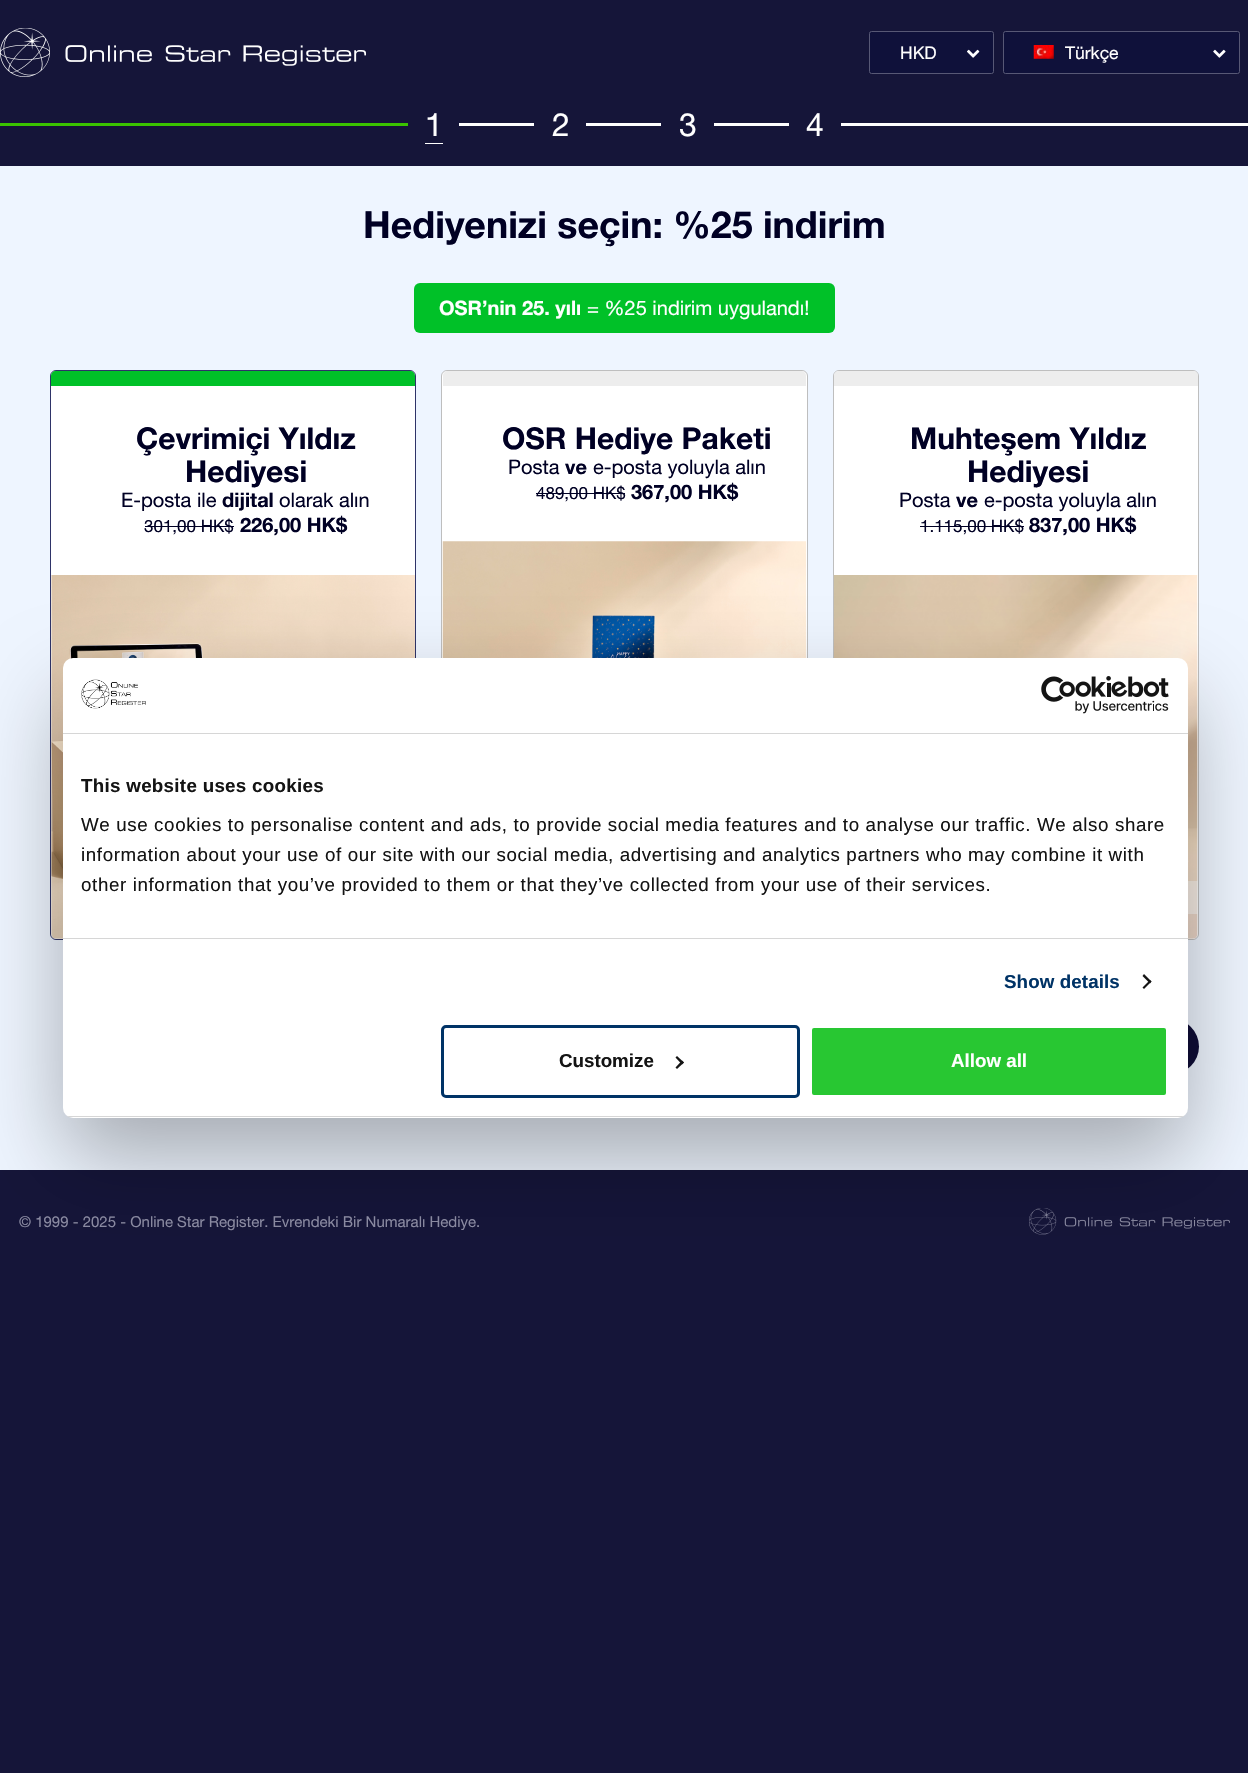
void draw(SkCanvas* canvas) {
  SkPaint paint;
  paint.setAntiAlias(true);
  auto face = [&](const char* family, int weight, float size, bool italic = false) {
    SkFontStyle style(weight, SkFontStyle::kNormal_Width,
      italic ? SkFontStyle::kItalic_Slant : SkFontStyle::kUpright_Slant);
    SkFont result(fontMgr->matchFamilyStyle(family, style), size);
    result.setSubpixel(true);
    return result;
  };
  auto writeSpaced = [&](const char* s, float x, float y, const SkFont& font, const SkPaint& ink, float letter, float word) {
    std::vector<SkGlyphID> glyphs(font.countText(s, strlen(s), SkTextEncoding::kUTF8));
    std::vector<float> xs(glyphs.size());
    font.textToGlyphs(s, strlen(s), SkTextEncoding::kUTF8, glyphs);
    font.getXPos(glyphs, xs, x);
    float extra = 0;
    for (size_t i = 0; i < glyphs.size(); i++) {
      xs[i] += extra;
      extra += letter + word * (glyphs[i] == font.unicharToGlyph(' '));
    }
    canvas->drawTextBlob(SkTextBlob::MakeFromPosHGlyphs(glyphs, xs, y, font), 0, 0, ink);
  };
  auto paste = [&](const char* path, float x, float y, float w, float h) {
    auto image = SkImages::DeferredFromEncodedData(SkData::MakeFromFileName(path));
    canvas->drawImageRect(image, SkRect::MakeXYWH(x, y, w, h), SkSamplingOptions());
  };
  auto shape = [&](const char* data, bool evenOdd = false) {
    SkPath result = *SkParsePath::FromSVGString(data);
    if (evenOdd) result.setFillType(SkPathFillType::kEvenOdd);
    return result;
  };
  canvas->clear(0xff151539);
  paste("img/1.png", 0, 28, 366, 49);
  paint.setColor(0xff0f113a);
  canvas->drawRoundRect(SkRect::MakeXYWH(869.5f, 31.5f, 124, 42), 2, 2, paint);
  paint.setStroke(true);
  paint.setStrokeWidth(1);
  paint.setColor(0xff575875);
  canvas->drawRoundRect(SkRect::MakeXYWH(869.5f, 31.5f, 124, 42), 2, 2, paint);
  paste("img/2.png", 967, 49, 13, 9);
  paint.setStroke(false);
  paint.setColor(0xff0f113a);
  canvas->drawRoundRect(SkRect::MakeXYWH(1003.5f, 31.5f, 236, 42), 2, 2, paint);
  paint.setStroke(true);
  paint.setColor(0xff575875);
  canvas->drawRoundRect(SkRect::MakeXYWH(1003.5f, 31.5f, 236, 42), 2, 2, paint);
  paste("img/3.png", 1033, 45, 21, 14);
  paste("img/4.png", 1213, 49, 13, 9);
  paint.setStroke(false);
  {
    const struct { float x, y, w, h; SkColor color; } items[] = {
      {0, 123, 408, 3, 0xff3ac300},
      {425, 143, 18, 1, 0xffffffff},
      {459, 123, 75, 3, 0xffffffff},
      {586, 123, 75, 3, 0xffffffff},
      {714, 123, 75, 3, 0xffffffff},
      {841, 123, 407, 3, 0xffffffff},
      {0, 166, 1248, 1004, 0xffeef5ff},
    };
    for (auto [x, y, w, h, color] : items) {
      paint.setColor(color);
      canvas->drawRect(SkRect::MakeXYWH(x, y, w, h), paint);
    }
  }
  paint.setColor(0xff00c128);
  canvas->drawRoundRect(SkRect::MakeXYWH(414, 283, 421, 50), 6, 6, paint);
  paint.setColor(0xffffffff);
  canvas->drawRoundRect(SkRect::MakeXYWH(50.5f, 370.5f, 365, 569), 5.5f, 5.5f, paint);
  paint.setStroke(true);
  paint.setColor(0xff2e3368);
  canvas->drawRoundRect(SkRect::MakeXYWH(50.5f, 370.5f, 365, 569), 5.5f, 5.5f, paint);
  paint.setStroke(false);
  paint.setColor(0xff00c128);
  canvas->drawPath(shape("M56 371H410C413 371 415 373 415 376V386H51V376C51 373 53 371 56 371Z"), paint);
  paint.setColor(0xff000024);
  canvas->drawRect(SkRect::MakeXYWH(145, 526, 89, 1), paint);
  paste("img/5.png", 51, 575, 364, 364);
  paint.setColor(0xffffffff);
  canvas->drawRoundRect(SkRect::MakeXYWH(441.5f, 370.5f, 366, 535), 5.5f, 5.5f, paint);
  paint.setStroke(true);
  paint.setColor(0xffbebebe);
  canvas->drawRoundRect(SkRect::MakeXYWH(441.5f, 370.5f, 366, 535), 5.5f, 5.5f, paint);
  paint.setStroke(false);
  paint.setColor(0xffededed);
  canvas->drawPath(shape("M448 371H801C804 371 806 373 806 376V386H443V376C443 373 445 371 448 371Z"), paint);
  paint.setColor(0xff000024);
  canvas->drawRect(SkRect::MakeXYWH(536, 493, 89, 1), paint);
  paste("img/6.png", 442, 541, 365, 117);
  paint.setColor(0xffffffff);
  canvas->drawRoundRect(SkRect::MakeXYWH(833.5f, 370.5f, 365, 569), 5.5f, 5.5f, paint);
  paint.setStroke(true);
  paint.setColor(0xffbebebe);
  canvas->drawRoundRect(SkRect::MakeXYWH(833.5f, 370.5f, 365, 569), 5.5f, 5.5f, paint);
  paint.setStroke(false);
  paint.setColor(0xffededed);
  canvas->drawPath(shape("M839 371H1193C1196 371 1198 373 1198 376V386H834V376C834 373 836 371 839 371Z"), paint);
  paint.setColor(0xff000024);
  canvas->drawRect(SkRect::MakeXYWH(920, 526, 104, 1), paint);
  paste("img/7.png", 834, 575, 364, 364);
  paint.setColor(0x80ffffff);
  canvas->drawRect(SkRect::MakeXYWH(1188, 881, 10, 33), paint);
  paint.setColor(0xff0f0d37);
  canvas->drawRoundRect(SkRect::MakeXYWH(1049, 1019, 150, 55), 27.5f, 27.5f, paint);
  paste("img/8.png", 1029, 1208, 201, 27);
  paint.setColor(0x4d000000);
  paint.setMaskFilter(SkMaskFilter::MakeBlur(kNormal_SkBlurStyle, 42.5f));
  canvas->drawRoundRect(SkRect::MakeXYWH(63, 698, 1125, 460), 10, 10, paint);
  paint.setMaskFilter(nullptr);
  paint.setColor(0xffffffff);
  canvas->drawRoundRect(SkRect::MakeXYWH(63, 658, 1125, 460), 10, 10, paint);
  paint.setColor(0xffd6d6d6);
  canvas->drawRect(SkRect::MakeXYWH(63, 733, 1125, 1), paint);
  paste("img/9.png", 81, 679, 65, 30);
  paste("img/10.png", 1041, 676, 128, 38);
  canvas->drawRect(SkRect::MakeXYWH(63, 938, 1125, 1), paint);
  paint.setColor(0xff141414);
  canvas->drawPath(shape("M1144 974L1151.5 981.5L1150 983.5L1142.5 976Z"), paint);
  canvas->drawPath(shape("M1150 980L1151.5 981.5L1144 989L1142.5 987.5Z"), paint);
  canvas->save();
  canvas->clipPath(shape("M73 658H1178C1183.5 658 1188 662.5 1188 668V1108C1188 1113.5 1183.5 1118 1178 1118H73C67.5 1118 63 1113.5 63 1108V668C63 662.5 67.5 658 73 658Z"), true);
  paint.setColor(0xffd6d6d6);
  canvas->drawRect(SkRect::MakeXYWH(63, 1116, 1125, 1), paint);
  canvas->restore();
  paint.setStroke(true);
  paint.setStrokeWidth(3);
  paint.setColor(0xff003366);
  canvas->drawRoundRect(SkRect::MakeXYWH(442.5f, 1026.5f, 356, 70), 3.5f, 3.5f, paint);
  paint.setStroke(false);
  paint.setColor(0xff141414);
  canvas->drawPath(shape("M677 1056L684 1062.5L682 1064.5L675.5 1057.5Z"), paint);
  canvas->drawPath(shape("M682 1060.5L684 1062.5L677 1069L675.5 1067.5Z"), paint);
  paint.setColor(0xff28c732);
  canvas->drawRoundRect(SkRect::MakeXYWH(810.5f, 1026.5f, 357, 70), 3.5f, 3.5f, paint);
  paint.setStroke(true);
  paint.setColor(0xffffffff);
  canvas->drawRoundRect(SkRect::MakeXYWH(810.5f, 1026.5f, 357, 70), 3.5f, 3.5f, paint);
  auto f0 = face("Helvetica Neue", 400, 17.5f);
  paint.setStroke(false);
  canvas->drawString("HKD", 900, 59, f0, paint);
  canvas->drawString("Türkçe", 1065, 59, f0, paint);
  auto f1 = face("Helvetica Neue", 400, 32);
  {
    const struct { const char* s; float x, y; } items[] = {
      {"1", 425, 136},
      {"2", 552, 136},
      {"3", 679, 136},
      {"4", 806, 136},
    };
    for (auto [s, x, y] : items) {
      canvas->drawString(s, x, y, f1, paint);
    }
  }
  auto f2 = face("Helvetica Neue", 700, 37.5f);
  paint.setColor(0xff000024);
  canvas->drawString("Hediyenizi seçin: %25 indirim", 363, 238, f2, paint);
  auto f3 = face("Helvetica Neue", 700, 20);
  paint.setColor(0xffffffff);
  canvas->drawString("OSR’nin 25. yılı", 439, 315, f3, paint);
  auto f4 = face("Helvetica Neue", 400, 20);
  canvas->drawString("= %25 indirim uygulandı!", 587, 315, f4, paint);
  auto f5 = face("Helvetica Neue", 700, 30);
  paint.setColor(0xff000024);
  canvas->drawString("Çevrimiçi Yıldız", 136, 449, f5, paint);
  canvas->drawString("Hediyesi", 185, 482, f5, paint);
  canvas->drawString("E-posta ile", 121, 507, f4, paint);
  canvas->drawString("dijital", 222, 507, f3, paint);
  canvas->drawString("olarak alın", 279, 507, f4, paint);
  auto f6 = face("Helvetica Neue", 400, 17);
  canvas->drawString("301,00 HK$", 144, 532, f6, paint);
  canvas->drawString("226,00 HK$", 240, 532, f3, paint);
  canvas->drawString("OSR Hediye Paketi", 502, 449, f5, paint);
  canvas->drawString("Posta", 508, 474, f4, paint);
  canvas->drawString("ve", 565, 474, f3, paint);
  canvas->drawString("e-posta yoluyla alın", 593, 474, f4, paint);
  canvas->drawString("489,00 HK$", 536, 499, f6, paint);
  canvas->drawString("367,00 HK$", 631, 499, f3, paint);
  canvas->drawString("Muhteşem Yıldız", 910, 449, f5, paint);
  canvas->drawString("Hediyesi", 967, 482, f5, paint);
  canvas->drawString("Posta", 899, 507, f4, paint);
  canvas->drawString("ve", 956, 507, f3, paint);
  canvas->drawString("e-posta yoluyla alın", 984, 507, f4, paint);
  canvas->drawString("1.115,00 HK$", 920, 532, f6, paint);
  canvas->drawString("837,00 HK$", 1029, 532, f3, paint);
  auto f7 = face("Helvetica Neue", 400, 15);
  paint.setColor(0xff8a8aa1);
  canvas->drawString("© 1999 - 2025 - Online Star Register. Evrendeki Bir Numaralı Hediye.", 19, 1227, f7, paint);
  auto f8 = face("Liberation Sans", 700, 18.75f);
  paint.setColor(0xff141414);
  writeSpaced("This website uses cookies", 81, 792, f8, paint, 0.3f, 0);
  auto f9 = face("Liberation Sans", 400, 18.75f);
  {
    const struct { const char* s; float x, y; } items[] = {
      {"We use cookies to personalise content and ads, to provide social media features and to analyse our traffic. We also share", 81, 831},
      {"information about your use of our site with our social media, advertising and analytics partners who may combine it with", 81, 861},
      {"other information that you’ve provided to them or that they’ve collected from your use of their services.", 81, 891},
    };
    for (auto [s, x, y] : items) {
      writeSpaced(s, x, y, f9, paint, 0.62f, 0);
    }
  }
  paint.setColor(0xff003366);
  writeSpaced("Show details", 1004, 988, f8, paint, 0.1f, 0);
  paint.setColor(0xff141414);
  canvas->drawString("Customize", 559, 1067, f8, paint);
  paint.setColor(0xffffffff);
  canvas->drawString("Allow all", 951, 1067, f8, paint);
}
